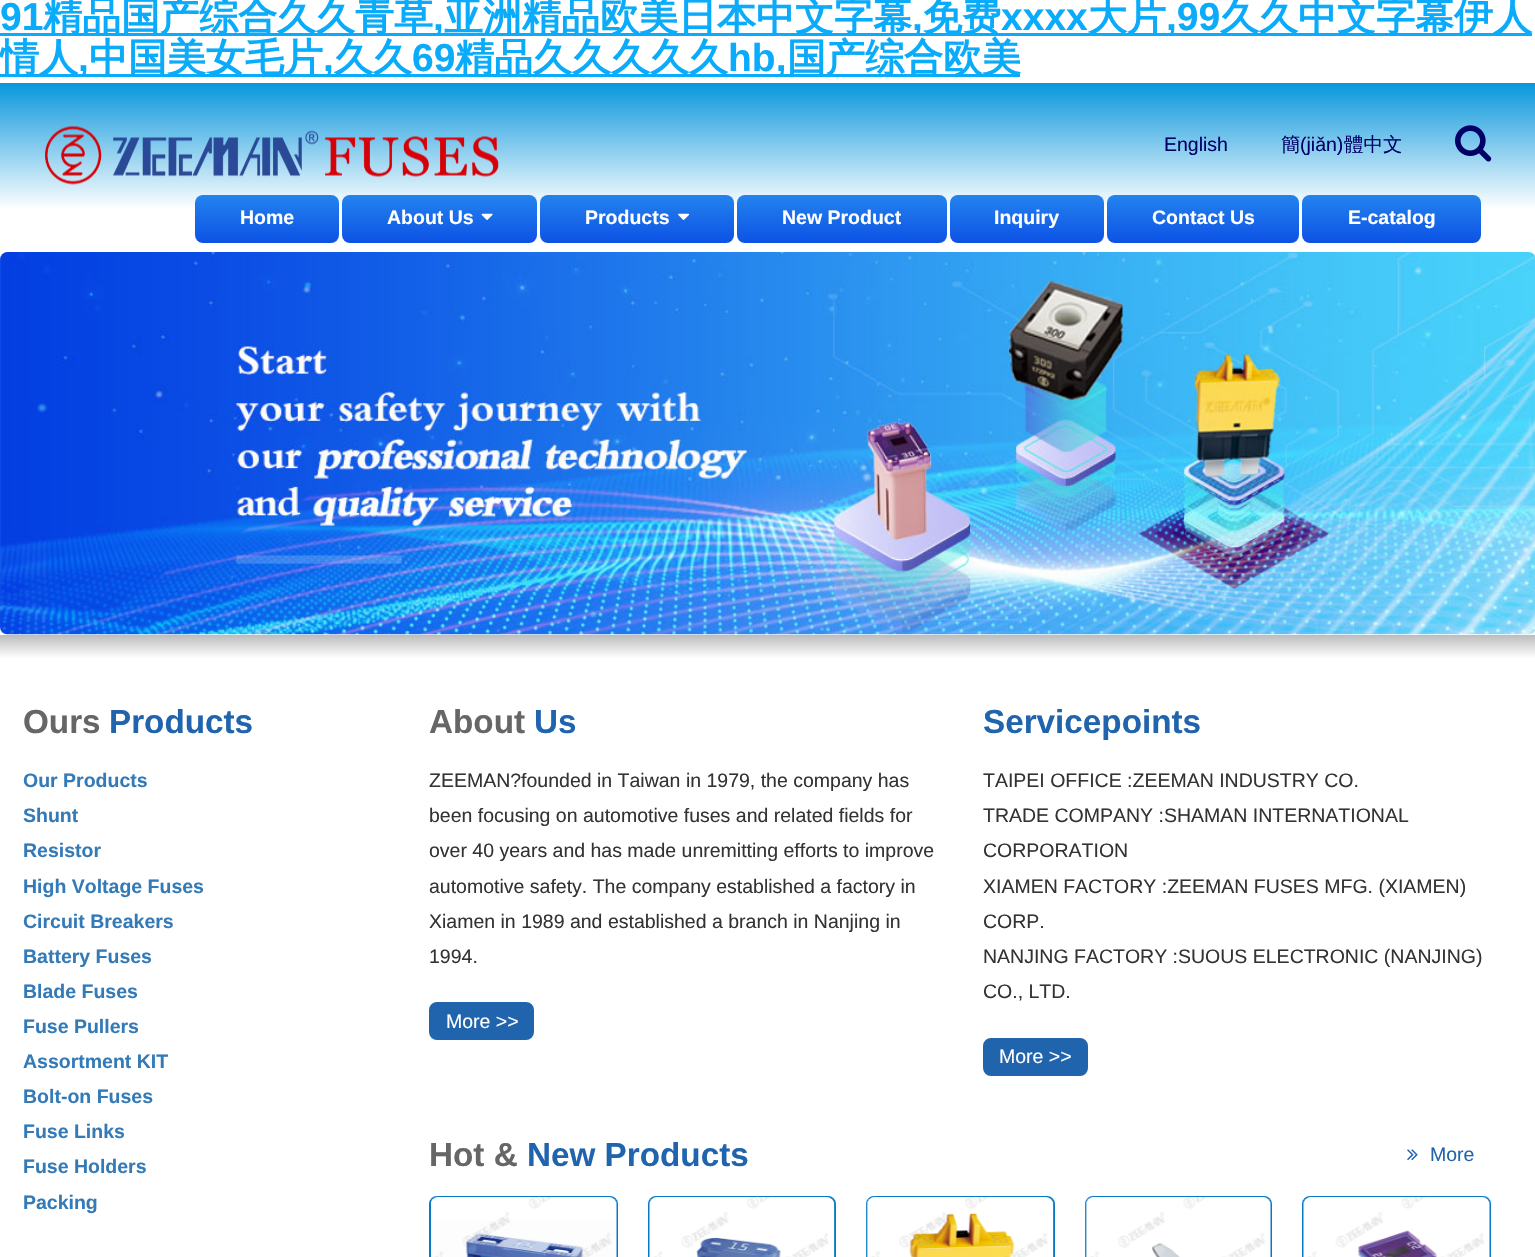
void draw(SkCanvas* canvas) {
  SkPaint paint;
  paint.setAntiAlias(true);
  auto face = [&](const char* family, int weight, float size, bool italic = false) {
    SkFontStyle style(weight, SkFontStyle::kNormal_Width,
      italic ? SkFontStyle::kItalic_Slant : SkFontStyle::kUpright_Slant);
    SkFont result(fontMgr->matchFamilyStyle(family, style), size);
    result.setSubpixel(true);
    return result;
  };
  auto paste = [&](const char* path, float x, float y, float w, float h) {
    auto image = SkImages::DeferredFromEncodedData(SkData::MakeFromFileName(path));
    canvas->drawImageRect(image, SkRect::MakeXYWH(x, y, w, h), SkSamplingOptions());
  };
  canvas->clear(0xffffffff);
  paint.setColor(0xff0aabfa);
  canvas->drawRect(SkRect::MakeXYWH(0, 33, 1532, 3), paint);
  canvas->drawRect(SkRect::MakeXYWH(0, 74, 1020, 3), paint);
  {
    const SkColor colors[] = {0xff0796dc, 0xffffffff, 0xffffffff};
    const float stops[] = {0, 0.75f, 1};
    const SkPoint ends[] = {{768, 82}, {768, 252}};
    paint.setShader(SkGradientShader::MakeLinear(ends, colors, stops, 3, SkTileMode::kClamp));
    paint.setAlpha(255);
  }
  canvas->drawRect(SkRect::MakeXYWH(0, 83, 1535, 125), paint);
  paste("img/1.png", 45, 126, 454, 59);
  paste("img/2.png", 1455, 125, 37, 37);
  {
    const SkColor colors[] = {0xff2483ed, 0xff0d53e6};
    const float stops[] = {0, 0.99f};
    const SkPoint ends[] = {{267, 195}, {267, 243}};
    paint.setShader(SkGradientShader::MakeLinear(ends, colors, stops, 2, SkTileMode::kClamp));
    paint.setAlpha(255);
  }
  canvas->drawRoundRect(SkRect::MakeXYWH(195, 195, 144, 48), 8, 8, paint);
  {
    const SkColor colors[] = {0xff2483ed, 0xff0d53e6};
    const float stops[] = {0, 0.99f};
    const SkPoint ends[] = {{440, 195}, {440, 243}};
    paint.setShader(SkGradientShader::MakeLinear(ends, colors, stops, 2, SkTileMode::kClamp));
    paint.setAlpha(255);
  }
  canvas->drawRoundRect(SkRect::MakeXYWH(342, 195, 195, 48), 8, 8, paint);
  paste("img/3.png", 481, 213, 12, 7);
  {
    const SkColor colors[] = {0xff2483ed, 0xff0d53e6};
    const float stops[] = {0, 0.99f};
    const SkPoint ends[] = {{637, 195}, {637, 243}};
    paint.setShader(SkGradientShader::MakeLinear(ends, colors, stops, 2, SkTileMode::kClamp));
    paint.setAlpha(255);
  }
  canvas->drawRoundRect(SkRect::MakeXYWH(540, 195, 194, 48), 8, 8, paint);
  paste("img/4.png", 678, 213, 12, 7);
  {
    const SkColor colors[] = {0xff2483ed, 0xff0d53e6};
    const float stops[] = {0, 0.99f};
    const SkPoint ends[] = {{842, 195}, {842, 243}};
    paint.setShader(SkGradientShader::MakeLinear(ends, colors, stops, 2, SkTileMode::kClamp));
    paint.setAlpha(255);
  }
  canvas->drawRoundRect(SkRect::MakeXYWH(737, 195, 210, 48), 8, 8, paint);
  {
    const SkColor colors[] = {0xff2483ed, 0xff0d53e6};
    const float stops[] = {0, 0.99f};
    const SkPoint ends[] = {{1027, 195}, {1027, 243}};
    paint.setShader(SkGradientShader::MakeLinear(ends, colors, stops, 2, SkTileMode::kClamp));
    paint.setAlpha(255);
  }
  canvas->drawRoundRect(SkRect::MakeXYWH(950, 195, 154, 48), 8, 8, paint);
  {
    const SkColor colors[] = {0xff2483ed, 0xff0d53e6};
    const float stops[] = {0, 0.99f};
    const SkPoint ends[] = {{1203, 195}, {1203, 243}};
    paint.setShader(SkGradientShader::MakeLinear(ends, colors, stops, 2, SkTileMode::kClamp));
    paint.setAlpha(255);
  }
  canvas->drawRoundRect(SkRect::MakeXYWH(1107, 195, 192, 48), 8, 8, paint);
  {
    const SkColor colors[] = {0xff2483ed, 0xff0d53e6};
    const float stops[] = {0, 0.99f};
    const SkPoint ends[] = {{1391, 195}, {1391, 243}};
    paint.setShader(SkGradientShader::MakeLinear(ends, colors, stops, 2, SkTileMode::kClamp));
    paint.setAlpha(255);
  }
  canvas->drawRoundRect(SkRect::MakeXYWH(1302, 195, 179, 48), 8, 8, paint);
  paste("img/5.png", 0, 252, 1535, 383);
  {
    const SkColor colors[] = {0xffb9b9b9, 0xffffffff, 0xffffffff};
    const float stops[] = {0, 0.53f, 0.99f};
    const SkPoint ends[] = {{768, 634}, {768, 680}};
    paint.setShader(SkGradientShader::MakeLinear(ends, colors, stops, 3, SkTileMode::kClamp));
    paint.setAlpha(255);
  }
  canvas->drawRect(SkRect::MakeXYWH(0, 635, 1535, 23), paint);
  paint.setShader(nullptr);
  paint.setColor(0xff2064ad);
  canvas->drawRoundRect(SkRect::MakeXYWH(430, 1003, 103, 36), 7, 7, paint);
  paint.setStroke(true);
  paint.setStrokeWidth(2);
  canvas->drawRoundRect(SkRect::MakeXYWH(430, 1003, 103, 36), 7, 7, paint);
  paint.setStroke(false);
  canvas->drawRoundRect(SkRect::MakeXYWH(984, 1039, 103, 36), 7, 7, paint);
  paint.setStroke(true);
  canvas->drawRoundRect(SkRect::MakeXYWH(984, 1039, 103, 36), 7, 7, paint);
  paste("img/6.png", 1407, 1149, 11, 12);
  paint.setColor(0xff067ac5);
  canvas->drawRoundRect(SkRect::MakeXYWH(430, 1197, 187, 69), 7, 7, paint);
  paste("img/7.png", 431, 1197, 186, 60);
  canvas->drawRoundRect(SkRect::MakeXYWH(649, 1197, 186, 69), 7, 7, paint);
  paste("img/8.png", 649, 1197, 186, 60);
  canvas->drawRoundRect(SkRect::MakeXYWH(867, 1197, 187, 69), 7, 7, paint);
  paste("img/9.png", 866, 1197, 188, 60);
  canvas->drawRoundRect(SkRect::MakeXYWH(1086, 1197, 185, 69), 7, 7, paint);
  paste("img/10.png", 1085, 1197, 186, 60);
  canvas->drawRoundRect(SkRect::MakeXYWH(1303, 1197, 187, 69), 7, 7, paint);
  paste("img/11.png", 1303, 1197, 187, 60);
  auto f0 = face("Liberation Sans", 700, 39);
  paint.setStroke(false);
  paint.setColor(0xff0aabfa);
  canvas->drawString("91", 0, 30, f0, paint);
  auto f1 = face("WenQuanYi Zen Hei", 700, 39);
  canvas->drawString("精品国产综合久久青草", 43, 30, f1, paint);
  canvas->drawString(",", 433, 30, f0, paint);
  canvas->drawString("亚洲精品欧美日本中文字幕", 444, 30, f1, paint);
  canvas->drawString(",", 912, 30, f0, paint);
  canvas->drawString("免费", 923, 30, f1, paint);
  canvas->drawString("xxxx", 1001, 30, f0, paint);
  canvas->drawString("大片", 1088, 30, f1, paint);
  canvas->drawString(",99", 1166, 30, f0, paint);
  canvas->drawString("久久中文字幕伊人", 1220, 30, f1, paint);
  canvas->drawString("情人", 0, 71, f1, paint);
  canvas->drawString(",", 78, 71, f0, paint);
  canvas->drawString("中国美女毛片", 89, 71, f1, paint);
  canvas->drawString(",", 323, 71, f0, paint);
  canvas->drawString("久久", 334, 71, f1, paint);
  canvas->drawString("69", 412, 71, f0, paint);
  canvas->drawString("精品久久久久久", 455, 71, f1, paint);
  canvas->drawString("hb,", 728, 71, f0, paint);
  canvas->drawString("国产综合欧美", 787, 71, f1, paint);
  auto f2 = face("Liberation Sans", 400, 19.5f);
  paint.setColor(0xff000066);
  canvas->drawString("English", 1164, 151, f2, paint);
  auto f3 = face("WenQuanYi Zen Hei", 500, 19.5f);
  canvas->drawString("簡", 1281, 151, f3, paint);
  canvas->drawString("(jiǎn)", 1300, 151, f2, paint);
  canvas->drawString("體中文", 1344, 151, f3, paint);
  auto f4 = face("Liberation Sans", 700, 19.5f);
  paint.setColor(0xffffffff);
  {
    const struct { const char* s; float x, y; } items[] = {
      {"Home", 240, 224},
      {"About Us", 387, 224},
      {"Products", 585, 224},
      {"New Product", 782, 224},
      {"Inquiry", 994, 224},
      {"Contact Us", 1152, 224},
      {"E-catalog", 1348, 224},
    };
    for (auto [s, x, y] : items) {
      canvas->drawString(s, x, y, f4, paint);
    }
  }
  auto f5 = face("Liberation Sans", 700, 33.25f);
  paint.setColor(0xff666666);
  canvas->drawString("Ours", 23, 733, f5, paint);
  paint.setColor(0xff2064ad);
  canvas->drawString("Products", 109, 733, f5, paint);
  paint.setColor(0xff337ab7);
  {
    const struct { const char* s; float x, y; } items[] = {
      {"Our Products", 23, 787},
      {"Shunt", 23, 822},
      {"Resistor", 23, 857},
      {"High Voltage Fuses", 23, 893},
      {"Circuit Breakers", 23, 928},
      {"Battery Fuses", 23, 963},
      {"Blade Fuses", 23, 998},
      {"Fuse Pullers", 23, 1033},
      {"Assortment KIT", 23, 1068},
      {"Bolt-on Fuses", 23, 1103},
      {"Fuse Links", 23, 1138},
      {"Fuse Holders", 23, 1173},
      {"Packing", 23, 1209},
    };
    for (auto [s, x, y] : items) {
      canvas->drawString(s, x, y, f4, paint);
    }
  }
  paint.setColor(0xff666666);
  canvas->drawString("About", 429, 733, f5, paint);
  paint.setColor(0xff2064ad);
  canvas->drawString("Us", 534, 733, f5, paint);
  paint.setColor(0xff333333);
  {
    const struct { const char* s; float x, y; } items[] = {
      {"ZEEMAN?founded in Taiwan in 1979, the company has", 429, 787},
      {"been focusing on automotive fuses and related fields for", 429, 822},
      {"over 40 years and has made unremitting efforts to improve", 429, 857},
      {"automotive safety. The company established a factory in", 429, 893},
      {"Xiamen in 1989 and established a branch in Nanjing in", 429, 928},
      {"1994.", 429, 963},
    };
    for (auto [s, x, y] : items) {
      canvas->drawString(s, x, y, f2, paint);
    }
  }
  paint.setColor(0xffffffff);
  canvas->drawString("More >>", 446, 1028, f2, paint);
  paint.setColor(0xff2064ad);
  canvas->drawString("Servicepoints", 983, 733, f5, paint);
  paint.setColor(0xff333333);
  {
    const struct { const char* s; float x, y; } items[] = {
      {"TAIPEI OFFICE :ZEEMAN INDUSTRY CO.", 983, 787},
      {"TRADE COMPANY :SHAMAN INTERNATIONAL", 983, 822},
      {"CORPORATION", 983, 857},
      {"XIAMEN FACTORY :ZEEMAN FUSES MFG. (XIAMEN)", 983, 893},
      {"CORP.", 983, 928},
      {"NANJING FACTORY :SUOUS ELECTRONIC (NANJING)", 983, 963},
      {"CO., LTD.", 983, 998},
    };
    for (auto [s, x, y] : items) {
      canvas->drawString(s, x, y, f2, paint);
    }
  }
  paint.setColor(0xffffffff);
  canvas->drawString("More >>", 999, 1063, f2, paint);
  paint.setColor(0xff666666);
  canvas->drawString("Hot &", 429, 1166, f5, paint);
  paint.setColor(0xff2064ad);
  canvas->drawString("New Products", 527, 1166, f5, paint);
  canvas->drawString("More", 1430, 1161, f2, paint);
}
